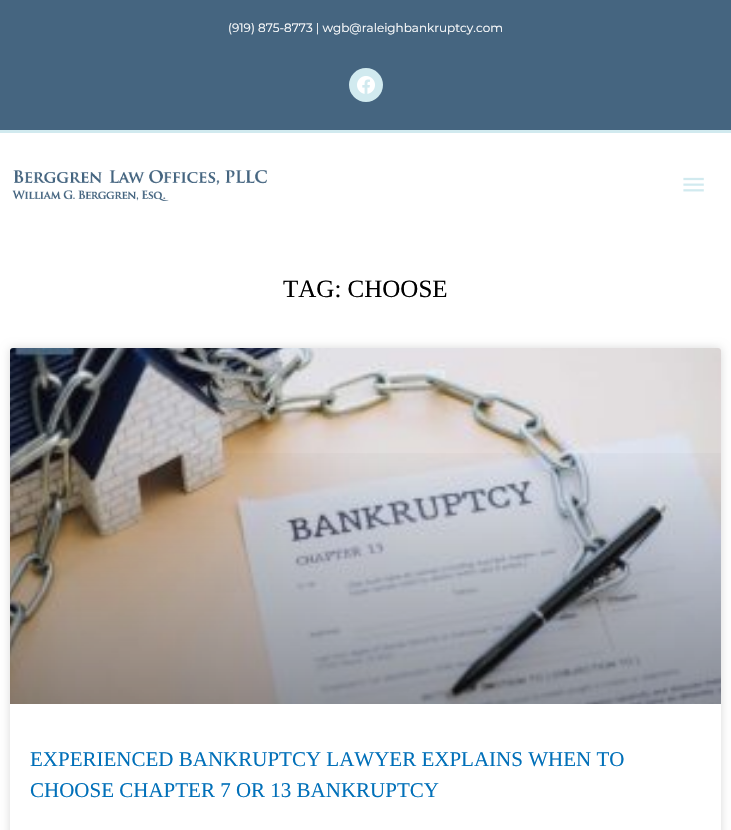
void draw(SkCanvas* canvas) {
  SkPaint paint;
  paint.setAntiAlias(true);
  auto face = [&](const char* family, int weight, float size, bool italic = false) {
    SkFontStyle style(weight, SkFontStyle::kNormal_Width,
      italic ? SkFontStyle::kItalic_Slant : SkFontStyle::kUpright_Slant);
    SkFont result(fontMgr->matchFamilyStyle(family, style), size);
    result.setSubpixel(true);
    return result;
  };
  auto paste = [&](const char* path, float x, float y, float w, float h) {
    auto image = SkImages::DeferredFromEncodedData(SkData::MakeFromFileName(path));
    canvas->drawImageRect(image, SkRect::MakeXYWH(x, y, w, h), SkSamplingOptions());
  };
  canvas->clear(0xffffffff);
  paint.setColor(0xff456580);
  canvas->drawRect(SkRect::MakeXYWH(0, 0, 731, 130), paint);
  paint.setColor(0xffd1eaef);
  canvas->drawRect(SkRect::MakeXYWH(0, 130, 731, 3), paint);
  canvas->drawCircle(366, 85, 17, paint);
  paste("img/1.png", 357, 76, 18, 18);
  paste("img/2.png", 12, 170, 255, 31);
  paste("img/3.png", 683, 177, 21, 15);
  paint.setColor(0x26000000);
  paint.setMaskFilter(SkMaskFilter::MakeBlur(kNormal_SkBlurStyle, 5));
  canvas->drawRoundRect(SkRect::MakeXYWH(10, 348, 711, 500), 3, 3, paint);
  paint.setMaskFilter(nullptr);
  paint.setColor(0xffffffff);
  canvas->drawRoundRect(SkRect::MakeXYWH(10, 348, 711, 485), 3, 3, paint);
  paste("img/4.png", 10, 348, 711, 356);
  {
    const SkColor colors[] = {0x59000000, 0x00000000};
    const float stops[] = {0, 0.75f};
    const SkPoint ends[] = {{366, 704}, {366, 348}};
    paint.setShader(SkGradientShader::MakeLinear(ends, colors, stops, 2, SkTileMode::kClamp));
    paint.setAlpha(255);
  }
  canvas->drawRect(SkRect::MakeXYWH(10, 453, 711, 251), paint);
  auto f0 = face("Montserrat", 100, 12);
  paint.setShader(nullptr);
  paint.setColor(0xffffffff);
  canvas->drawString("(919) 875-8773 | wgb@raleighbankruptcy.com", 228, 32, f0, paint);
  auto f1 = face("Liberation Serif", 400, 25);
  paint.setColor(0xff000000);
  canvas->drawString("TAG: CHOOSE", 283, 297, f1, paint);
  auto f2 = face("Liberation Serif", 400, 21);
  paint.setColor(0xff0170b9);
  canvas->drawString("EXPERIENCED BANKRUPTCY LAWYER EXPLAINS WHEN TO", 30, 766, f2, paint);
  canvas->drawString("CHOOSE CHAPTER 7 OR 13 BANKRUPTCY", 30, 797, f2, paint);
}
